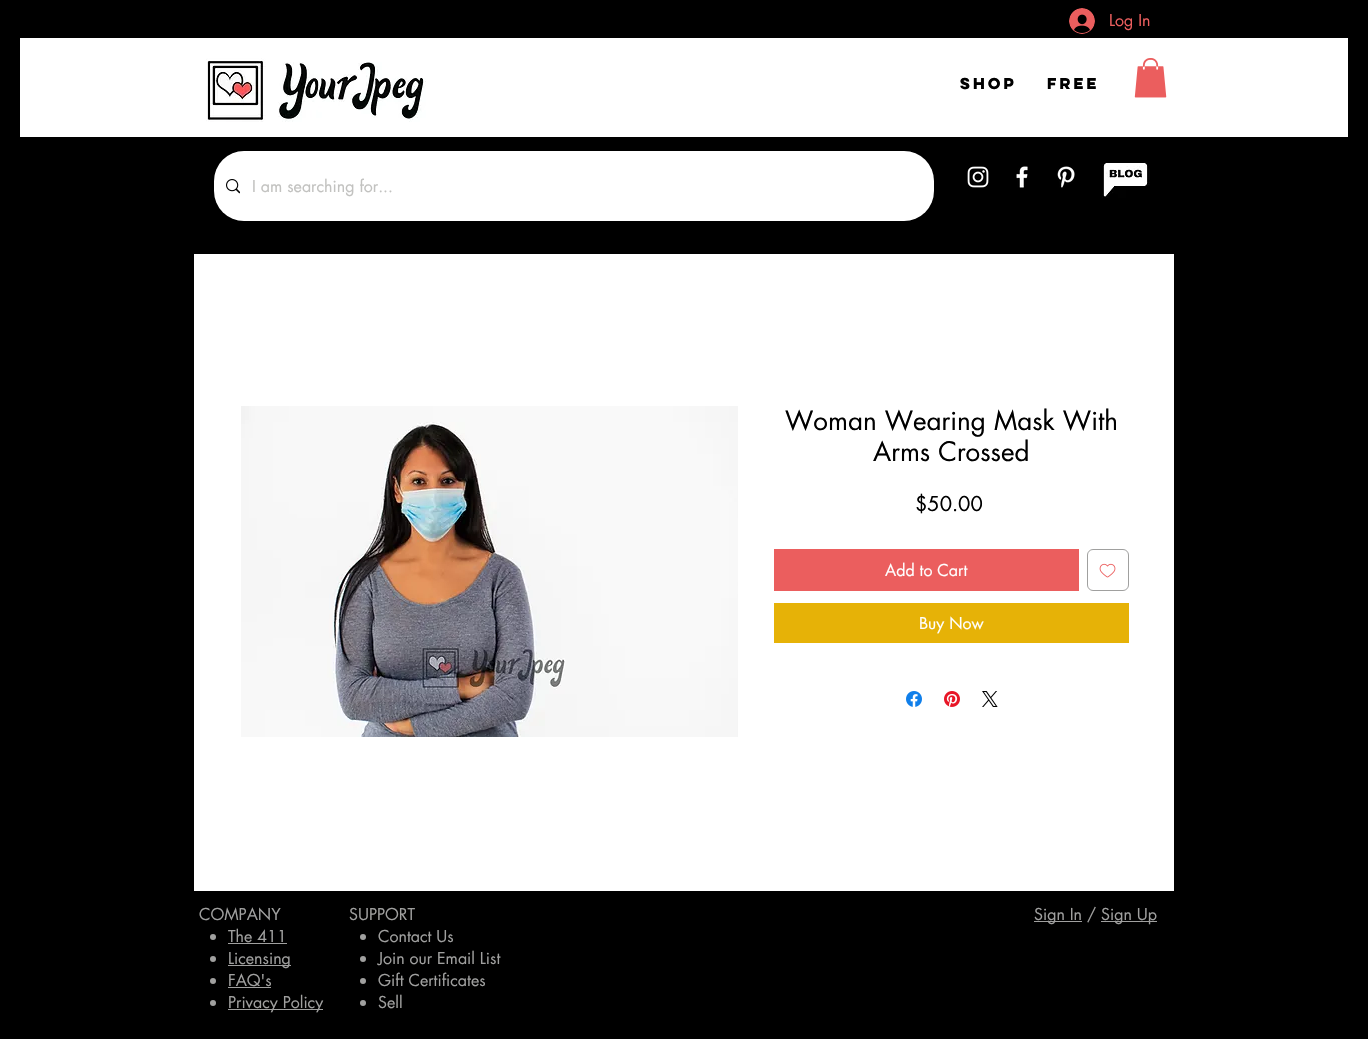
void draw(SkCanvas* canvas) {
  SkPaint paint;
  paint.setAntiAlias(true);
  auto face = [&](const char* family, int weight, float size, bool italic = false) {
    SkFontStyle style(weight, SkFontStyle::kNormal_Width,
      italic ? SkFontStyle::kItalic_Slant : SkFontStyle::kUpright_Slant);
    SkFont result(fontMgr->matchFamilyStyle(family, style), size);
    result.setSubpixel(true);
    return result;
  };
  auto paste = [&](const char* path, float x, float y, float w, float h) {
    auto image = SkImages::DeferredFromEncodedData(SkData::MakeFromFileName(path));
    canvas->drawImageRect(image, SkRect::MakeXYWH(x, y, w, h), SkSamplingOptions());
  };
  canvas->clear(0xff000000);
  paste("img/1.png", 1069, 8, 26, 26);
  paint.setColor(0xffffffff);
  canvas->drawRect(SkRect::MakeXYWH(20, 38, 1328, 99), paint);
  paste("img/2.png", 206, 58, 220, 64);
  paste("img/3.png", 1134, 58, 33, 40);
  canvas->drawRoundRect(SkRect::MakeXYWH(214, 151, 720, 70), 30, 30, paint);
  paste("img/4.png", 226, 179, 14, 15);
  paste("img/5.png", 967, 166, 22, 22);
  paste("img/6.png", 1016, 166, 12, 22);
  paste("img/7.png", 1057, 166, 18, 22);
  paste("img/8.png", 1102, 162, 48, 36);
  canvas->drawRect(SkRect::MakeXYWH(194, 254, 980, 637), paint);
  paste("img/9.png", 241, 406, 497, 331);
  paint.setColor(0xffeb5e5e);
  canvas->drawRect(SkRect::MakeXYWH(774, 549, 305, 42), paint);
  paint.setStroke(true);
  paint.setStrokeWidth(1);
  paint.setColor(0xffa0a09f);
  canvas->drawRoundRect(SkRect::MakeXYWH(1087.5f, 549.5f, 41, 41), 5.5f, 5.5f, paint);
  paste("img/10.png", 1099, 563, 17, 15);
  paint.setStroke(false);
  paint.setColor(0xffe6b207);
  canvas->drawRect(SkRect::MakeXYWH(774, 603, 355, 40), paint);
  paste("img/11.png", 906, 691, 16, 16);
  paste("img/12.png", 944, 691, 16, 16);
  paste("img/13.png", 982, 691, 16, 16);
  paint.setColor(0xffa0a09f);
  canvas->drawCircle(213, 937, 3, paint);
  canvas->drawRect(SkRect::MakeXYWH(228, 943, 59, 1), paint);
  canvas->drawCircle(213, 959, 3, paint);
  canvas->drawRect(SkRect::MakeXYWH(228, 965, 63, 1), paint);
  canvas->drawCircle(213, 981, 3, paint);
  canvas->drawRect(SkRect::MakeXYWH(228, 987, 43, 1), paint);
  canvas->drawCircle(213, 1003, 3, paint);
  canvas->drawRect(SkRect::MakeXYWH(228, 1009, 95, 1), paint);
  canvas->drawCircle(363, 937, 3, paint);
  canvas->drawCircle(363, 959, 3, paint);
  canvas->drawCircle(363, 981, 3, paint);
  canvas->drawCircle(363, 1003, 3, paint);
  canvas->drawRect(SkRect::MakeXYWH(1034, 921, 48, 1), paint);
  canvas->drawRect(SkRect::MakeXYWH(1101, 921, 56, 1), paint);
  auto f0 = face("futura", 400, 16);
  paint.setColor(0xffeb5e5e);
  canvas->drawString("Log In", 1109, 26, f0, paint);
  auto f1 = face("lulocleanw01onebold", 700, 14);
  paint.setColor(0xff000000);
  canvas->drawString("Shop", 960, 89, f1, paint);
  canvas->drawString("FREE", 1047, 89, f1, paint);
  paint.setColor(0xffc2c2c0);
  canvas->drawString("I am searching for...", 252, 192, f0, paint);
  auto f2 = face("futura", 400, 26);
  paint.setColor(0xff000000);
  canvas->drawString("Woman Wearing Mask With", 785, 430, f2, paint);
  canvas->drawString("Arms Crossed", 873, 461, f2, paint);
  auto f3 = face("futura", 400, 20);
  canvas->drawString("$50.00", 915, 511, f3, paint);
  paint.setColor(0xffffffff);
  canvas->drawString("Add to Cart", 885, 576, f0, paint);
  canvas->drawString("Buy Now", 919, 629, f0, paint);
  paint.setColor(0xffa0a09f);
  {
    const struct { const char* s; float x, y; } items[] = {
      {"COMPANY", 199, 920},
      {"The 411", 228, 942},
      {"Licensing", 228, 964},
      {"FAQ's", 228, 986},
      {"Privacy Policy", 228, 1008},
      {"SUPPORT", 349, 920},
      {"Contact Us", 378, 942},
      {"Join our Email List", 378, 964},
      {"Gift Certificates", 378, 986},
      {"Sell", 378, 1008},
      {"Sign In /", 1034, 920},
      {"Sign Up", 1101, 920},
    };
    for (auto [s, x, y] : items) {
      canvas->drawString(s, x, y, f0, paint);
    }
  }
}
